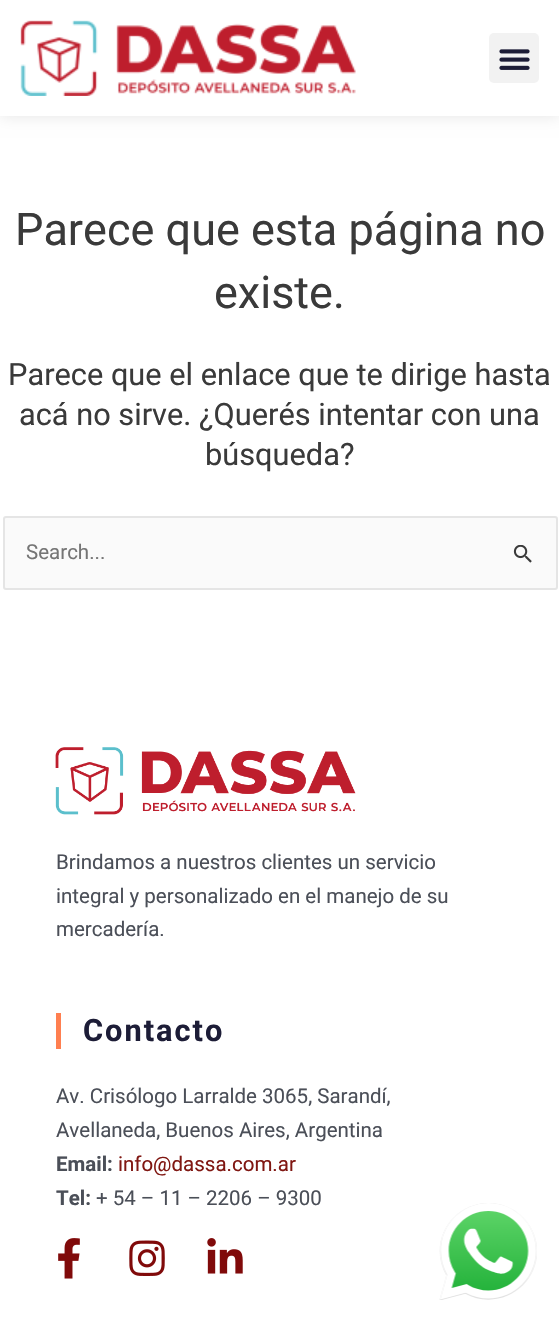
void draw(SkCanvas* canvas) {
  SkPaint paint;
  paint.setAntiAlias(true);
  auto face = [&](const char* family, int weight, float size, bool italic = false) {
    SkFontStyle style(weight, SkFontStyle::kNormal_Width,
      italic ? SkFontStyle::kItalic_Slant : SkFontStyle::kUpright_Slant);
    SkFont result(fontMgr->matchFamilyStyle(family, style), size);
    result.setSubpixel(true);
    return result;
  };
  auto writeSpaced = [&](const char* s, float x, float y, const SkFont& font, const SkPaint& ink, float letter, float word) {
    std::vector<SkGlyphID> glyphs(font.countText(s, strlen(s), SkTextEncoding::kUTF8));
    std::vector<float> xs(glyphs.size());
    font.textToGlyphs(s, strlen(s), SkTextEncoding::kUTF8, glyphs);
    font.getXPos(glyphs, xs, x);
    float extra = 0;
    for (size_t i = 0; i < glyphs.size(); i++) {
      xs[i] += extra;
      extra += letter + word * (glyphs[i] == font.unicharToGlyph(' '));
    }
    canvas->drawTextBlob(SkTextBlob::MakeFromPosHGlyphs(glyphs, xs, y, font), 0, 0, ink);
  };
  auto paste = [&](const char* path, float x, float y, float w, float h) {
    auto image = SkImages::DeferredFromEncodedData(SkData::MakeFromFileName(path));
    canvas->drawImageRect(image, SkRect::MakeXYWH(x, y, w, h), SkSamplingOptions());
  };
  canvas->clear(0xffffffff);
  paint.setColor(0x1a000000);
  paint.setMaskFilter(SkMaskFilter::MakeBlur(kNormal_SkBlurStyle, 7.5f));
  canvas->drawRect(SkRect::MakeXYWH(0, 0, 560, 116), paint);
  paint.setMaskFilter(nullptr);
  paint.setColor(0xffffffff);
  canvas->drawRect(SkRect::MakeXYWH(0, 0, 559, 116), paint);
  paste("img/1.png", 20, 20, 336, 76);
  paint.setColor(0xfff2f2f2);
  canvas->drawRoundRect(SkRect::MakeXYWH(489, 33, 50, 50), 5, 5, paint);
  paste("img/2.png", 499, 49, 31, 21);
  paint.setColor(0xfffafafa);
  canvas->drawRoundRect(SkRect::MakeXYWH(4, 517, 553, 72), 2, 2, paint);
  paint.setStroke(true);
  paint.setStrokeWidth(2);
  paint.setColor(0xffe5e5e5);
  canvas->drawRoundRect(SkRect::MakeXYWH(4, 517, 553, 72), 2, 2, paint);
  paste("img/3.png", 513, 545, 19, 18);
  paste("img/4.png", 55, 747, 301, 68);
  paint.setStroke(false);
  paint.setColor(0xffff7f50);
  canvas->drawRect(SkRect::MakeXYWH(56, 1013, 5, 36), paint);
  paste("img/5.png", 58, 1238, 22, 41);
  paste("img/6.png", 129, 1240, 36, 36);
  paste("img/7.png", 207, 1238, 36, 36);
  paste("img/8.png", 439, 1203, 98, 97);
  auto f0 = face("Roboto", 400, 45);
  paint.setColor(0xff3a3a3a);
  canvas->drawString("Parece que esta página no", 15, 245, f0, paint);
  canvas->drawString("existe.", 214, 308, f0, paint);
  auto f1 = face("Roboto", 400, 30.75f);
  {
    const struct { const char* s; float x, y; } items[] = {
      {"Parece que el enlace que te dirige hasta", 8, 385},
      {"acá no sirve. ¿Querés intentar con una", 19, 425},
      {"búsqueda?", 205, 465},
    };
    for (auto [s, x, y] : items) {
      canvas->drawString(s, x, y, f1, paint);
    }
  }
  auto f2 = face("Roboto", 400, 20.5f);
  paint.setColor(0xff757575);
  canvas->drawString("Search...", 26, 559, f2, paint);
  paint.setColor(0xff4b4f58);
  {
    const struct { const char* s; float x, y; } items[] = {
      {"Brindamos a nuestros clientes un servicio", 56, 869},
      {"integral y personalizado en el manejo de su", 56, 903},
      {"mercadería.", 56, 936},
    };
    for (auto [s, x, y] : items) {
      canvas->drawString(s, x, y, f2, paint);
    }
  }
  auto f3 = face("Roboto", 700, 30.75f);
  paint.setColor(0xff1d1d37);
  writeSpaced("Contacto", 83, 1041, f3, paint, 2, 0);
  paint.setColor(0xff4b4f58);
  canvas->drawString("Av. Crisólogo Larralde 3065, Sarandí,", 56, 1103, f2, paint);
  canvas->drawString("Avellaneda, Buenos Aires, Argentina", 56, 1137, f2, paint);
  auto f4 = face("Roboto", 700, 20.5f);
  canvas->drawString("Email:", 56, 1171, f4, paint);
  paint.setColor(0xff801712);
  canvas->drawString("info@dassa.com.ar", 118, 1171, f2, paint);
  paint.setColor(0xff4b4f58);
  canvas->drawString("Tel:", 56, 1205, f4, paint);
  canvas->drawString("+ 54 – 11 – 2206 – 9300", 96, 1205, f2, paint);
}
